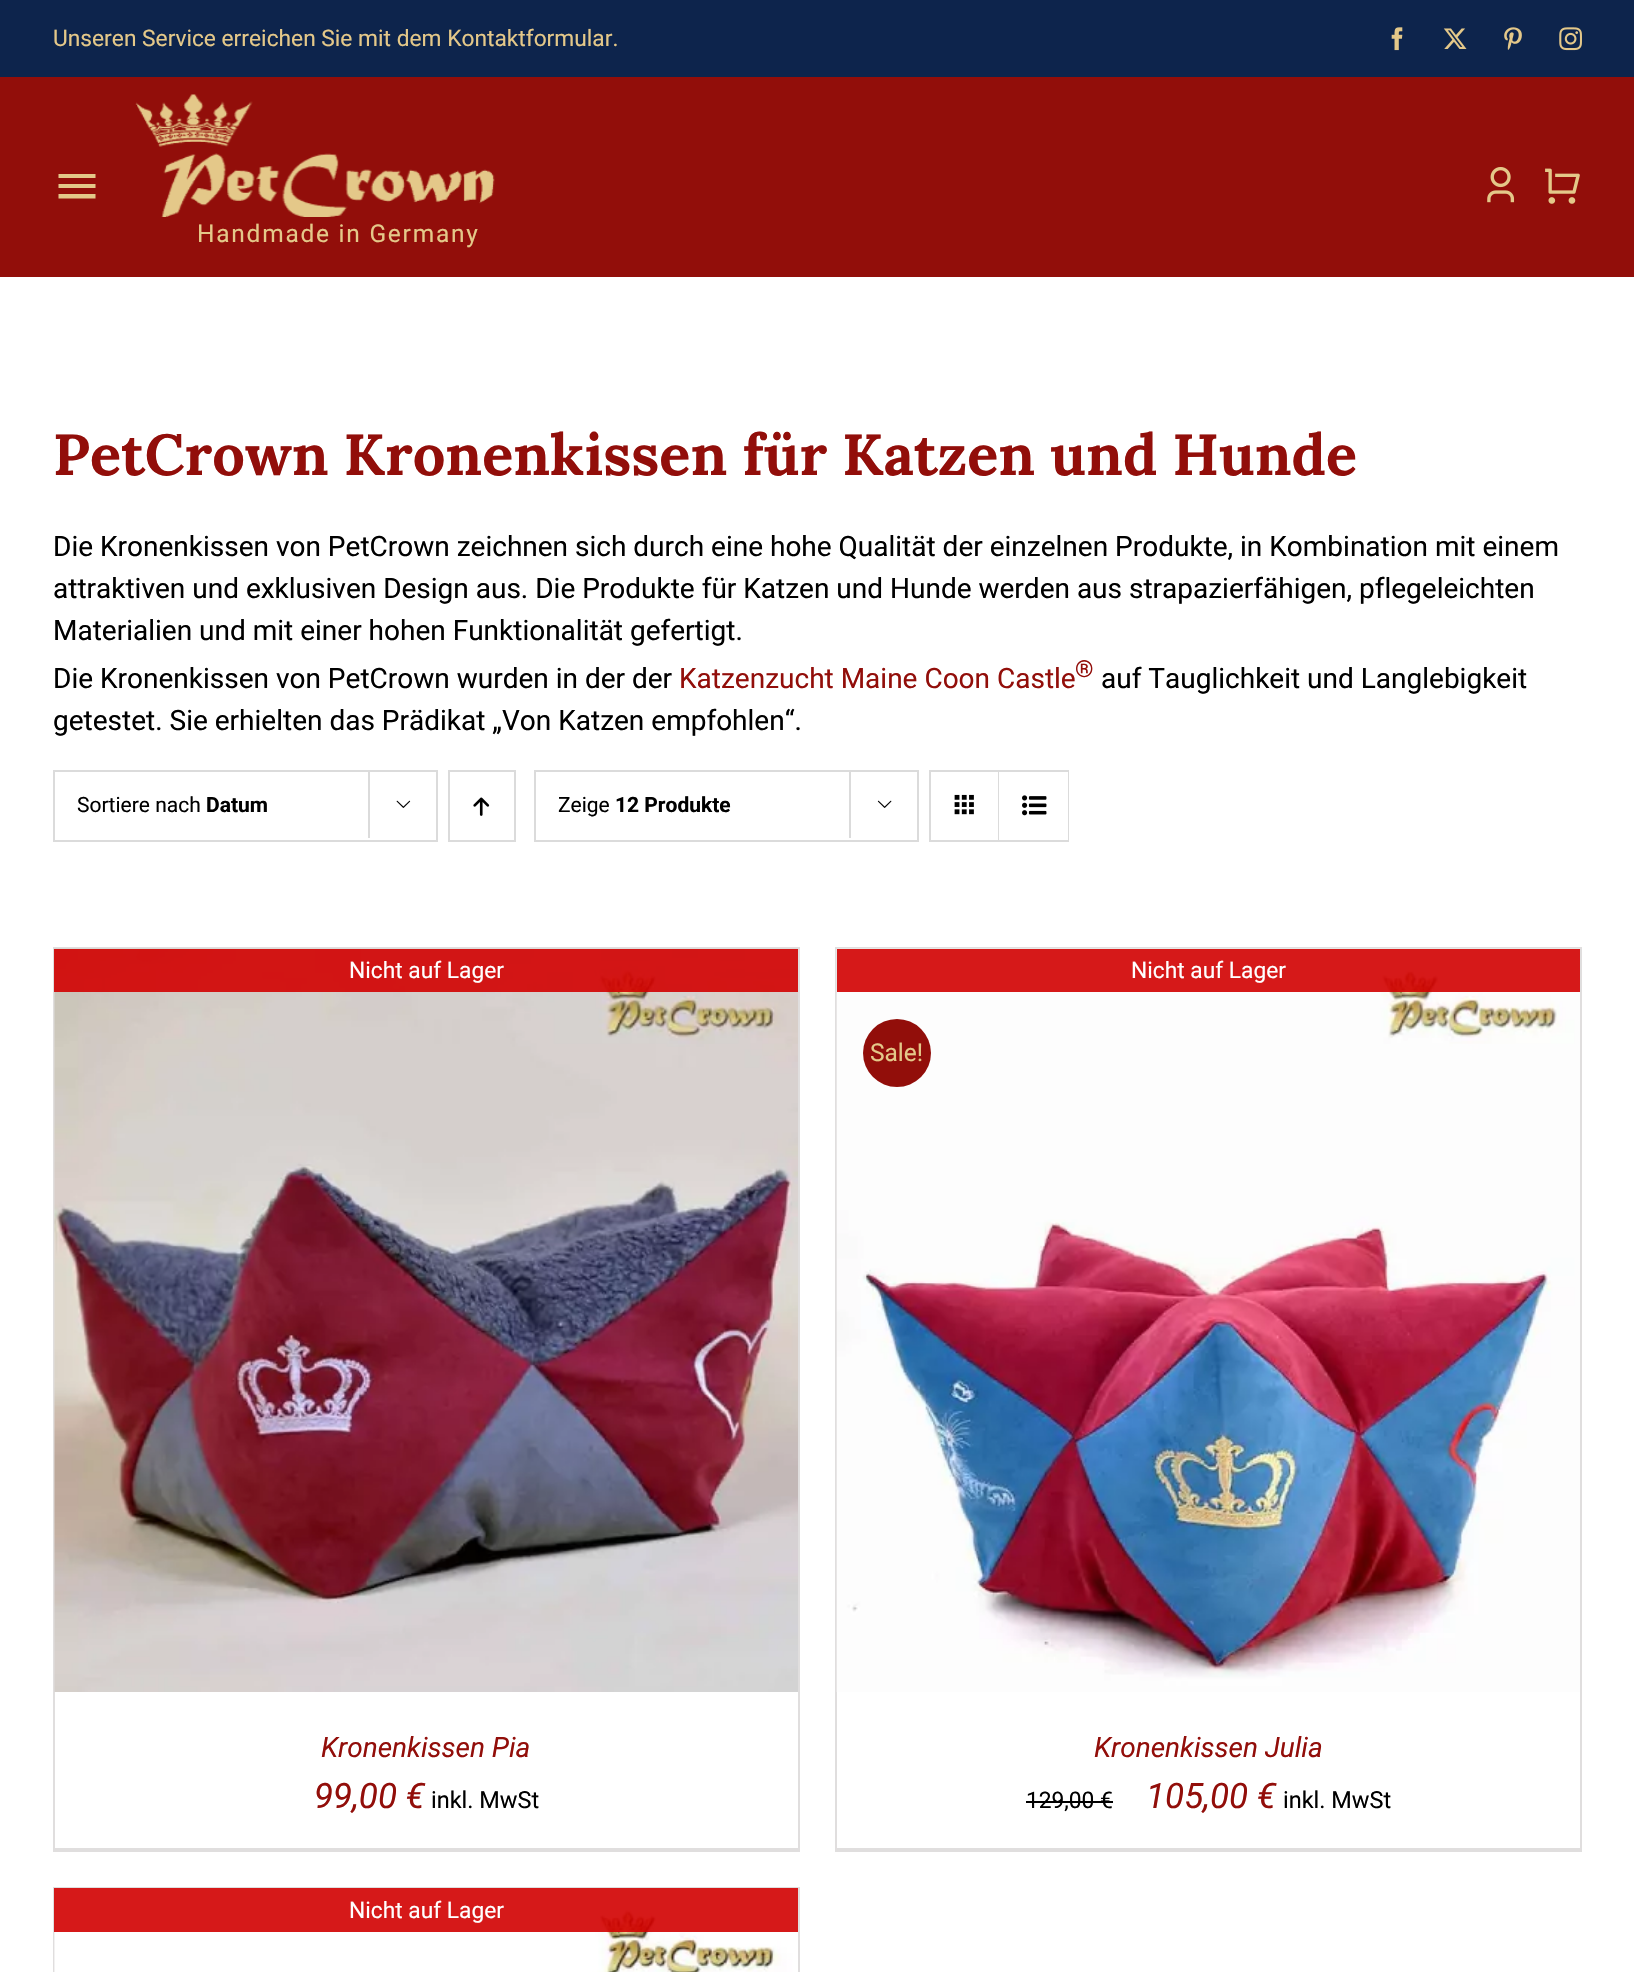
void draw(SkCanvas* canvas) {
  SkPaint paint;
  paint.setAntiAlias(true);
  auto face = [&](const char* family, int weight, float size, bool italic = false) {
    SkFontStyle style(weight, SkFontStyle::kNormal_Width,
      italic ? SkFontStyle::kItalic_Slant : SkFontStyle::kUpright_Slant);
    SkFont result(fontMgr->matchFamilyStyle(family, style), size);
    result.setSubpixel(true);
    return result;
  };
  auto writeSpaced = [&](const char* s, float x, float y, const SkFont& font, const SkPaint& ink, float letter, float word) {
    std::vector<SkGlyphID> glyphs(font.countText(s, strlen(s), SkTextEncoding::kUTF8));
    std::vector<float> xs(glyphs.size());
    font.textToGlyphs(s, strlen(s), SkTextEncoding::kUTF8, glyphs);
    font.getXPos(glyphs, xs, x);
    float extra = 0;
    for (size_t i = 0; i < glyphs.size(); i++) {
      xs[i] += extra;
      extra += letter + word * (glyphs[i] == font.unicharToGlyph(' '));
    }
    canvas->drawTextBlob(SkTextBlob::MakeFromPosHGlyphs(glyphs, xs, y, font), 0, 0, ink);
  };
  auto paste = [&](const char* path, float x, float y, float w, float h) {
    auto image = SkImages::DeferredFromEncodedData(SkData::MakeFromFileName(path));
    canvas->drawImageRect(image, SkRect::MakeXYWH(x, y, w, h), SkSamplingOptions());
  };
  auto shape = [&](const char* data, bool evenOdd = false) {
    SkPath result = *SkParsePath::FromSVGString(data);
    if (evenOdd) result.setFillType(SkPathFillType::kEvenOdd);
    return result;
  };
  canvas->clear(0xffffffff);
  paint.setColor(0xff0d244c);
  canvas->drawRect(SkRect::MakeXYWH(0, 0, 1634, 77), paint);
  paste("img/1.png", 1391, 27, 12, 24);
  paste("img/2.png", 1443, 28, 24, 21);
  paste("img/3.png", 1504, 27, 18, 23);
  paste("img/4.png", 1559, 27, 23, 24);
  paint.setColor(0xff920e0a);
  canvas->drawRect(SkRect::MakeXYWH(0, 77, 1634, 200), paint);
  paint.setColor(0xffe4c889);
  canvas->drawPath(shape("M58.5 174H95.5V178H58.5ZM58.5 188V184H95.5V188ZM58.5 198.5V194H95.5V198.5Z"), paint);
  paste("img/5.png", 1487, 167, 28, 36);
  paste("img/6.png", 1545, 168, 35, 36);
  paste("img/7.png", 135, 94, 360, 123);
  paint.setStroke(true);
  paint.setStrokeWidth(2);
  paint.setColor(0xffdbdbdb);
  canvas->drawRect(SkRect::MakeXYWH(54, 771, 383, 70), paint);
  paint.setStroke(false);
  canvas->drawRect(SkRect::MakeXYWH(368, 770, 2, 68), paint);
  paste("img/8.png", 396, 800, 15, 8);
  paint.setStroke(true);
  canvas->drawRect(SkRect::MakeXYWH(449, 771, 66, 70), paint);
  paste("img/9.png", 473, 797, 17, 19);
  canvas->drawRect(SkRect::MakeXYWH(535, 771, 383, 70), paint);
  paint.setStroke(false);
  canvas->drawRect(SkRect::MakeXYWH(849, 770, 2, 68), paint);
  paste("img/10.png", 877, 800, 15, 8);
  paint.setStroke(true);
  canvas->drawRect(SkRect::MakeXYWH(930, 771, 138, 70), paint);
  paint.setStroke(false);
  canvas->drawRect(SkRect::MakeXYWH(998, 772, 1, 68), paint);
  paste("img/11.png", 954, 794, 20, 21);
  paint.setColor(0xffffffff);
  canvas->drawRect(SkRect::MakeXYWH(1067, 772, 1, 68), paint);
  paste("img/12.png", 1022, 795, 25, 21);
  {
    const struct { float x, y, w, h; SkColor color; } items[] = {
      {53, 947, 747, 2, 0xffe0dede},
      {798, 947, 2, 905, 0xffe0dede},
      {53, 1848, 747, 4, 0xffe0dede},
      {53, 947, 2, 905, 0xffe0dede},
    };
    for (auto [x, y, w, h, color] : items) {
      paint.setColor(color);
      canvas->drawRect(SkRect::MakeXYWH(x, y, w, h), paint);
    }
  }
  paste("img/13.png", 54, 948, 744, 744);
  {
    const struct { float x, y, w, h; SkColor color; } items[] = {
      {54, 949, 744, 43, 0xe6d20000},
      {835, 947, 747, 2, 0xffe0dede},
      {1580, 947, 2, 905, 0xffe0dede},
      {835, 1848, 747, 4, 0xffe0dede},
      {835, 947, 2, 905, 0xffe0dede},
    };
    for (auto [x, y, w, h, color] : items) {
      paint.setColor(color);
      canvas->drawRect(SkRect::MakeXYWH(x, y, w, h), paint);
    }
  }
  paste("img/14.png", 836, 948, 744, 744);
  paint.setColor(0xe6d20000);
  canvas->drawRect(SkRect::MakeXYWH(837, 949, 743, 43), paint);
  paint.setColor(0xff920e0a);
  canvas->drawCircle(897, 1053, 34, paint);
  {
    const struct { float x, y, w, h; SkColor color; } items[] = {
      {1026, 1801, 87, 2, 0xff000000},
      {53, 1887, 747, 2, 0xffe0dede},
      {798, 1887, 2, 85, 0xffe0dede},
      {53, 1887, 2, 85, 0xffe0dede},
    };
    for (auto [x, y, w, h, color] : items) {
      paint.setColor(color);
      canvas->drawRect(SkRect::MakeXYWH(x, y, w, h), paint);
    }
  }
  paste("img/15.png", 54, 1888, 744, 84);
  paint.setColor(0xe6d20000);
  canvas->drawRect(SkRect::MakeXYWH(54, 1888, 744, 44), paint);
  auto f0 = face("Roboto", 400, 22.75f);
  paint.setColor(0xffe4c889);
  canvas->drawString("Unseren Service erreichen Sie mit dem Kontaktformular.", 53, 46, f0, paint);
  auto f1 = face("Roboto", 400, 24.5f);
  writeSpaced("Handmade in Germany", 197, 242, f1, paint, 1.75f, 0);
  auto f2 = face("Lora", 700, 57.75f);
  paint.setColor(0xff920e0a);
  canvas->drawString("PetCrown Kronenkissen für Katzen und Hunde", 53, 475, f2, paint);
  auto f3 = face("Roboto", 400, 28);
  paint.setColor(0xff000000);
  {
    const struct { const char* s; float x, y; } items[] = {
      {"Die Kronenkissen von PetCrown zeichnen sich durch eine hohe Qualität der einzelnen Produkte, in Kombination mit einem", 53, 556},
      {"attraktiven und exklusiven Design aus. Die Produkte für Katzen und Hunde werden aus strapazierfähigen, pflegeleichten", 53, 598},
      {"Materialien und mit einer hohen Funktionalität gefertigt.", 53, 640},
      {"Die Kronenkissen von PetCrown wurden in der der", 53, 688},
    };
    for (auto [s, x, y] : items) {
      canvas->drawString(s, x, y, f3, paint);
    }
  }
  paint.setColor(0xff920e0a);
  canvas->drawString("Katzenzucht Maine Coon Castle", 679, 688, f3, paint);
  auto f4 = face("Roboto", 400, 23.5f);
  canvas->drawString("®", 1075, 677, f4, paint);
  paint.setColor(0xff000000);
  canvas->drawString("auf Tauglichkeit und Langlebigkeit", 1101, 688, f3, paint);
  canvas->drawString("getestet. Sie erhielten das Prädikat „Von Katzen empfohlen“.", 53, 730, f3, paint);
  auto f5 = face("Roboto", 400, 21);
  canvas->drawString("Sortiere nach", 77, 812, f5, paint);
  auto f6 = face("Roboto", 700, 21);
  canvas->drawString("Datum", 206, 812, f6, paint);
  canvas->drawString("Zeige", 558, 812, f5, paint);
  canvas->drawString("12 Produkte", 615, 812, f6, paint);
  paint.setColor(0xffffffff);
  canvas->drawString("Nicht auf Lager", 349, 978, f0, paint);
  auto f7 = face("Roboto", 400, 28, true);
  paint.setColor(0xff920e0a);
  canvas->drawString("Kronenkissen Pia", 321, 1757, f7, paint);
  auto f8 = face("Roboto", 400, 35, true);
  canvas->drawString("99,00 €", 314, 1808, f8, paint);
  paint.setColor(0xff000000);
  canvas->drawString("inkl. MwSt", 431, 1808, f4, paint);
  paint.setColor(0xffffffff);
  canvas->drawString("Nicht auf Lager", 1131, 978, f0, paint);
  paint.setColor(0xffe4c889);
  canvas->drawString("Sale!", 870, 1061, f1, paint);
  paint.setColor(0xff920e0a);
  canvas->drawString("Kronenkissen Julia", 1094, 1757, f7, paint);
  paint.setColor(0xff000000);
  canvas->drawString("129,00 €", 1026, 1808, f0, paint);
  paint.setColor(0xff920e0a);
  canvas->drawString("105,00 €", 1146, 1808, f8, paint);
  paint.setColor(0xff000000);
  canvas->drawString("inkl. MwSt", 1283, 1808, f4, paint);
  paint.setColor(0xffffffff);
  canvas->drawString("Nicht auf Lager", 349, 1918, f0, paint);
}
